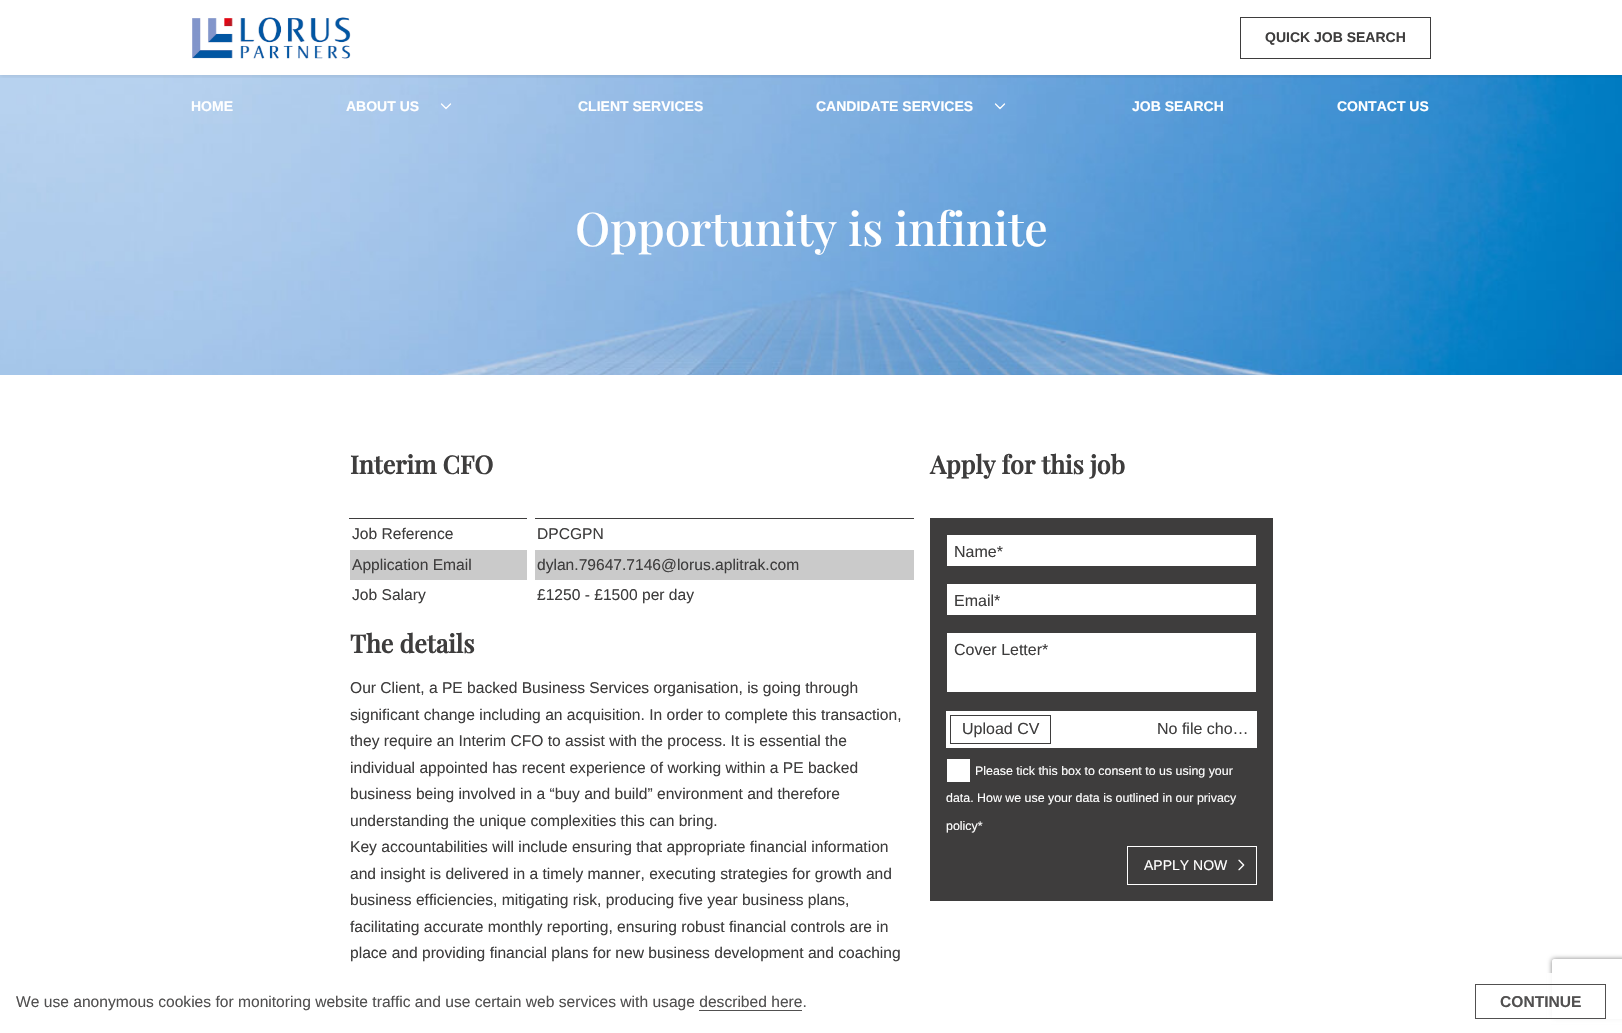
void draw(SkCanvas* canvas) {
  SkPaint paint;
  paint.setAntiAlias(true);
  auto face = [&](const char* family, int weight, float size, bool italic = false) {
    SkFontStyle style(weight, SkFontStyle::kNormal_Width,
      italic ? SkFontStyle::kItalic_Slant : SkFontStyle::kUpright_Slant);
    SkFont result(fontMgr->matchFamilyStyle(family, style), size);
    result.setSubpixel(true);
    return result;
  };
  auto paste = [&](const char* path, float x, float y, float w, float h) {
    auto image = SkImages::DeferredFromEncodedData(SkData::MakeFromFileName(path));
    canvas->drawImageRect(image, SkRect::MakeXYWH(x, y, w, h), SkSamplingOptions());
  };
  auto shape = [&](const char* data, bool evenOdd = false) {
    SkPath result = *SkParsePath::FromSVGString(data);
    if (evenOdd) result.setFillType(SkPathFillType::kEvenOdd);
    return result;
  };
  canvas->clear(0xffffffff);
  paste("img/2.png", 0, 75, 1622, 300);
  canvas->save();
  canvas->clipRect(SkRect::MakeXYWH(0, 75, 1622, 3));
  paint.setColor(0x12000000);
  paint.setMaskFilter(SkMaskFilter::MakeBlur(kNormal_SkBlurStyle, 2));
  canvas->drawRect(SkRect::MakeXYWH(0, 2, 1622, 75), paint);
  paint.setMaskFilter(nullptr);
  canvas->restore();
  paste("img/1.png", 192, 17, 159, 42);
  paint.setStroke(true);
  paint.setStrokeWidth(1);
  paint.setColor(0xff3e3d3d);
  canvas->drawRect(SkRect::MakeXYWH(1240.5f, 17.5f, 190, 41), paint);
  paint.setStrokeWidth(1.3f);
  paint.setStrokeCap(SkPaint::kRound_Cap);
  paint.setStrokeJoin(SkPaint::kRound_Join);
  paint.setColor(0xffffffff);
  canvas->drawPath(shape("M450.5 104L446 108.5L441.5 104"), paint);
  canvas->drawPath(shape("M1004.5 104L1000 108.5L995.5 104"), paint);
  paint.setStroke(false);
  {
    const struct { float x, y, w, h; SkColor color; } items[] = {
      {349, 518, 565, 1, 0xff3e3d3d},
      {527, 515, 8, 4, 0xffffffff},
      {350, 550, 177, 30, 0xffcacaca},
      {535, 550, 379, 30, 0xffcacaca},
      {930, 518, 343, 383, 0xff3e3d3d},
      {947, 535, 309, 31, 0xffffffff},
      {947, 584, 309, 31, 0xffffffff},
      {947, 633, 309, 59, 0xffffffff},
      {946, 711, 311, 37, 0xffffffff},
    };
    for (auto [x, y, w, h, color] : items) {
      paint.setColor(color);
      canvas->drawRect(SkRect::MakeXYWH(x, y, w, h), paint);
    }
  }
  paint.setStroke(true);
  paint.setStrokeWidth(1);
  paint.setStrokeCap(SkPaint::kButt_Cap);
  paint.setStrokeJoin(SkPaint::kMiter_Join);
  paint.setColor(0xff3e3d3d);
  canvas->drawRect(SkRect::MakeXYWH(950.5f, 715.5f, 100, 28), paint);
  paint.setStroke(false);
  paint.setColor(0xffffffff);
  canvas->drawRect(SkRect::MakeXYWH(947, 759, 23, 23), paint);
  paint.setStroke(true);
  canvas->drawRect(SkRect::MakeXYWH(1127.5f, 846.5f, 129, 38), paint);
  paste("img/3.png", 1238, 859, 7, 12);
  canvas->save();
  canvas->clipPath(shape("M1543 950H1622V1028H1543ZM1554 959H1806C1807 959 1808 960 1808 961V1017C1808 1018 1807 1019 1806 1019H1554C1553 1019 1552 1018 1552 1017V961C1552 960 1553 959 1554 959Z", true), true);
  paint.setStroke(false);
  paint.setColor(0xff808080);
  paint.setMaskFilter(SkMaskFilter::MakeBlur(kNormal_SkBlurStyle, 2.5f));
  canvas->drawRoundRect(SkRect::MakeXYWH(1552, 959, 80, 60), 2, 2, paint);
  paint.setMaskFilter(nullptr);
  canvas->restore();
  paint.setColor(0xe6ffffff);
  canvas->drawRect(SkRect::MakeXYWH(1547, 973, 75, 51), paint);
  paint.setStroke(true);
  paint.setColor(0xe63e3d3d);
  canvas->drawRect(SkRect::MakeXYWH(1475.5f, 984.5f, 130, 34), paint);
  auto f0 = face("Liberation Sans", 700, 14);
  paint.setStroke(false);
  paint.setColor(0xff3e3d3d);
  canvas->drawString("QUICK JOB SEARCH", 1265, 42, f0, paint);
  paint.setColor(0xffffffff);
  {
    const struct { const char* s; float x, y; } items[] = {
      {"HOME", 191, 111},
      {"ABOUT US", 346, 111},
      {"CLIENT SERVICES", 578, 111},
      {"CANDIDATE SERVICES", 816, 111},
      {"JOB SEARCH", 1132, 111},
      {"CONTACT US", 1337, 111},
    };
    for (auto [s, x, y] : items) {
      canvas->drawString(s, x, y, f0, paint);
    }
  }
  auto f1 = face("Playfair Display", 500, 46.4f);
  canvas->drawString("Opportunity is infinite", 575, 246, f1, paint);
  auto f2 = face("Playfair Display", 700, 25);
  paint.setColor(0xff3e3d3d);
  canvas->drawString("Interim CFO", 350, 474, f2, paint);
  auto f3 = face("Liberation Sans", 400, 15.6f);
  {
    const struct { const char* s; float x, y; } items[] = {
      {"Job Reference", 352, 539},
      {"DPCGPN", 537, 539},
      {"Application Email", 352, 570},
      {"dylan.79647.7146@lorus.aplitrak.com", 537, 570},
      {"Job Salary", 352, 600},
      {"£1250 - £1500 per day", 537, 600},
    };
    for (auto [s, x, y] : items) {
      canvas->drawString(s, x, y, f3, paint);
    }
  }
  canvas->drawString("The details", 350, 653, f2, paint);
  {
    const struct { const char* s; float x, y; } items[] = {
      {"Our Client, a PE backed Business Services organisation, is going through", 350, 693},
      {"significant change including an acquisition. In order to complete this transaction,", 350, 720},
      {"they require an Interim CFO to assist with the process. It is essential the", 350, 746},
      {"individual appointed has recent experience of working within a PE backed", 350, 773},
      {"business being involved in a “buy and build” environment and therefore", 350, 799},
      {"understanding the unique complexities this can bring.", 350, 826},
      {"Key accountabilities will include ensuring that appropriate financial information", 350, 852},
      {"and insight is delivered in a timely manner, executing strategies for growth and", 350, 879},
      {"business efficiencies, mitigating risk, producing five year business plans,", 350, 905},
      {"facilitating accurate monthly reporting, ensuring robust financial controls are in", 350, 932},
      {"place and providing financial plans for new business development and coaching", 350, 958},
    };
    for (auto [s, x, y] : items) {
      canvas->drawString(s, x, y, f3, paint);
    }
  }
  canvas->drawString("Apply for this job", 930, 474, f2, paint);
  auto f4 = face("Liberation Sans", 400, 16);
  {
    const struct { const char* s; float x, y; } items[] = {
      {"Name*", 954, 557},
      {"Email*", 954, 606},
      {"Cover Letter*", 954, 655},
      {"Upload CV", 962, 734},
      {"No file cho…", 1157, 734},
    };
    for (auto [s, x, y] : items) {
      canvas->drawString(s, x, y, f4, paint);
    }
  }
  auto f5 = face("Liberation Sans", 400, 12.4f);
  paint.setColor(0xffffffff);
  {
    const struct { const char* s; float x, y; } items[] = {
      {"Please tick this box to consent to us using your", 975, 775},
      {"data. How we use your data is outlined in our privacy", 946, 802},
      {"policy*", 946, 830},
    };
    for (auto [s, x, y] : items) {
      canvas->drawString(s, x, y, f5, paint);
    }
  }
  auto f6 = face("Liberation Sans", 400, 14);
  canvas->drawString("APPLY NOW", 1144, 870, f6, paint);
  paint.setColor(0xff515050);
  canvas->drawString("We use anonymous cookies for monitoring website traffic and use certain web services with usage described here.", 16, 1007, f3, paint);
  paint.setColor(0xe63e3d3d);
  canvas->drawRect(SkRect::MakeXYWH(699, 1010, 103, 1), paint);
  auto f7 = face("Liberation Sans", 700, 15.6f);
  paint.setColor(0xff515050);
  canvas->drawString("CONTINUE", 1500, 1007, f7, paint);
}
